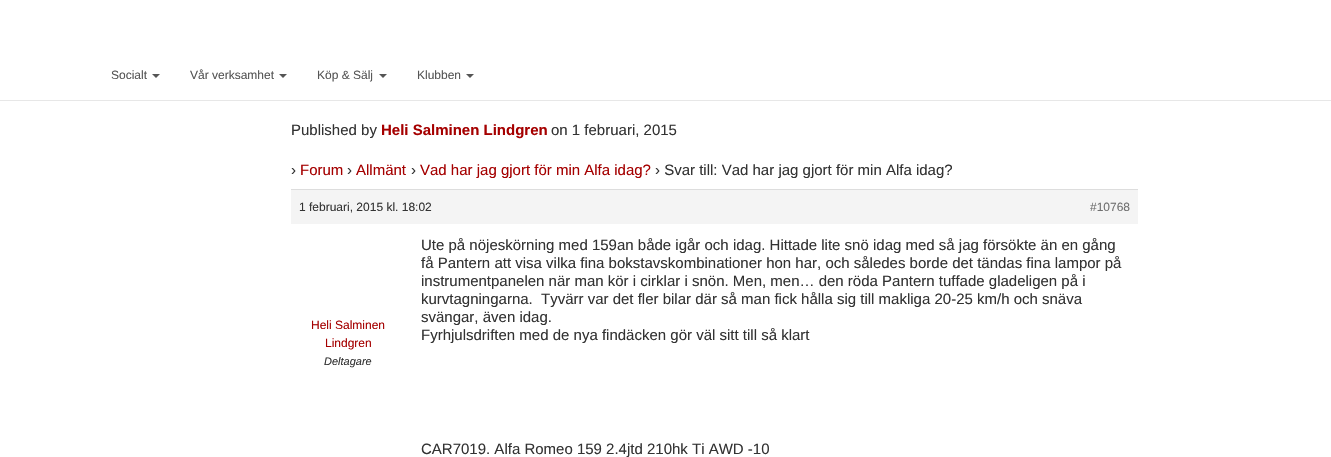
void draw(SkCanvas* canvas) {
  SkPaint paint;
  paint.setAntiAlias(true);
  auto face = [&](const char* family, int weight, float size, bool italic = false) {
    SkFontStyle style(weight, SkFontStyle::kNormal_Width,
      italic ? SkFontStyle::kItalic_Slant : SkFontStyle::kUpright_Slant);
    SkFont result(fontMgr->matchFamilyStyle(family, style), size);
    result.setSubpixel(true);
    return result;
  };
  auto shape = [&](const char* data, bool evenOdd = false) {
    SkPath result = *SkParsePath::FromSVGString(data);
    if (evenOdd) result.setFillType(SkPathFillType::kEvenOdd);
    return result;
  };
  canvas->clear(0xffffffff);
  paint.setColor(0xffe7e7e7);
  canvas->drawRect(SkRect::MakeXYWH(0, 100, 1331, 1), paint);
  paint.setColor(0xff555555);
  canvas->drawPath(shape("M152 74H160L156 78Z"), paint);
  canvas->drawPath(shape("M279 74H287L283 78Z"), paint);
  canvas->drawPath(shape("M379 74H387L383 78Z"), paint);
  canvas->drawPath(shape("M466 74H474L470 78Z"), paint);
  paint.setColor(0xfff4f4f4);
  canvas->drawRect(SkRect::MakeXYWH(291, 190, 847, 34), paint);
  paint.setColor(0xffdddddd);
  canvas->drawRect(SkRect::MakeXYWH(291, 189, 847, 1), paint);
  auto f0 = face("Liberation Sans", 400, 12);
  paint.setColor(0xff555555);
  {
    const struct { const char* s; float x, y; } items[] = {
      {"Socialt", 111, 79},
      {"Vår verksamhet", 190, 79},
      {"Köp & Sälj", 317, 79},
      {"Klubben", 417, 79},
    };
    for (auto [s, x, y] : items) {
      canvas->drawString(s, x, y, f0, paint);
    }
  }
  auto f1 = face("Liberation Sans", 400, 15);
  paint.setColor(0xff333333);
  canvas->drawString("Published by", 291, 135, f1, paint);
  auto f2 = face("Liberation Sans", 700, 15);
  paint.setColor(0xffa50000);
  canvas->drawString("Heli Salminen Lindgren", 381, 135, f2, paint);
  paint.setColor(0xff333333);
  canvas->drawString("on 1 februari, 2015", 551, 135, f1, paint);
  canvas->drawString("›", 291, 175, f1, paint);
  paint.setColor(0xffa50000);
  canvas->drawString("Forum", 300, 175, f1, paint);
  paint.setColor(0xff333333);
  canvas->drawString("›", 347, 175, f1, paint);
  paint.setColor(0xffa50000);
  canvas->drawString("Allmänt", 356, 175, f1, paint);
  paint.setColor(0xff333333);
  canvas->drawString("›", 411, 175, f1, paint);
  paint.setColor(0xffa50000);
  canvas->drawString("Vad har jag gjort för min Alfa idag?", 420, 175, f1, paint);
  paint.setColor(0xff333333);
  canvas->drawString("› Svar till: Vad har jag gjort för min Alfa idag?", 655, 175, f1, paint);
  canvas->drawString("1 februari, 2015 kl. 18:02", 299, 211, f0, paint);
  paint.setColor(0xff707070);
  canvas->drawString("#10768", 1090, 211, f0, paint);
  paint.setColor(0xffa50000);
  canvas->drawString("Heli Salminen", 311, 329, f0, paint);
  canvas->drawString("Lindgren", 325, 347, f0, paint);
  auto f3 = face("Liberation Sans", 400, 11, true);
  paint.setColor(0xff333333);
  canvas->drawString("Deltagare", 324, 365, f3, paint);
  {
    const struct { const char* s; float x, y; } items[] = {
      {"Ute på nöjeskörning med 159an både igår och idag. Hittade lite snö idag med så jag försökte än en gång", 421, 250},
      {"få Pantern att visa vilka fina bokstavskombinationer hon har, och således borde det tändas fina lampor på", 421, 268},
      {"instrumentpanelen när man kör i cirklar i snön. Men, men… den röda Pantern tuffade gladeligen på i", 421, 286},
      {"kurvtagningarna.", 421, 304},
      {"Tyvärr var det fler bilar där så man fick hålla sig till makliga 20-25 km/h och snäva", 541, 304},
      {"svängar, även idag.", 421, 322},
      {"Fyrhjulsdriften med de nya findäcken gör väl sitt till så klart", 421, 340},
      {"CAR7019. Alfa Romeo 159 2.4jtd 210hk Ti AWD -10", 421, 454},
    };
    for (auto [s, x, y] : items) {
      canvas->drawString(s, x, y, f1, paint);
    }
  }
}
